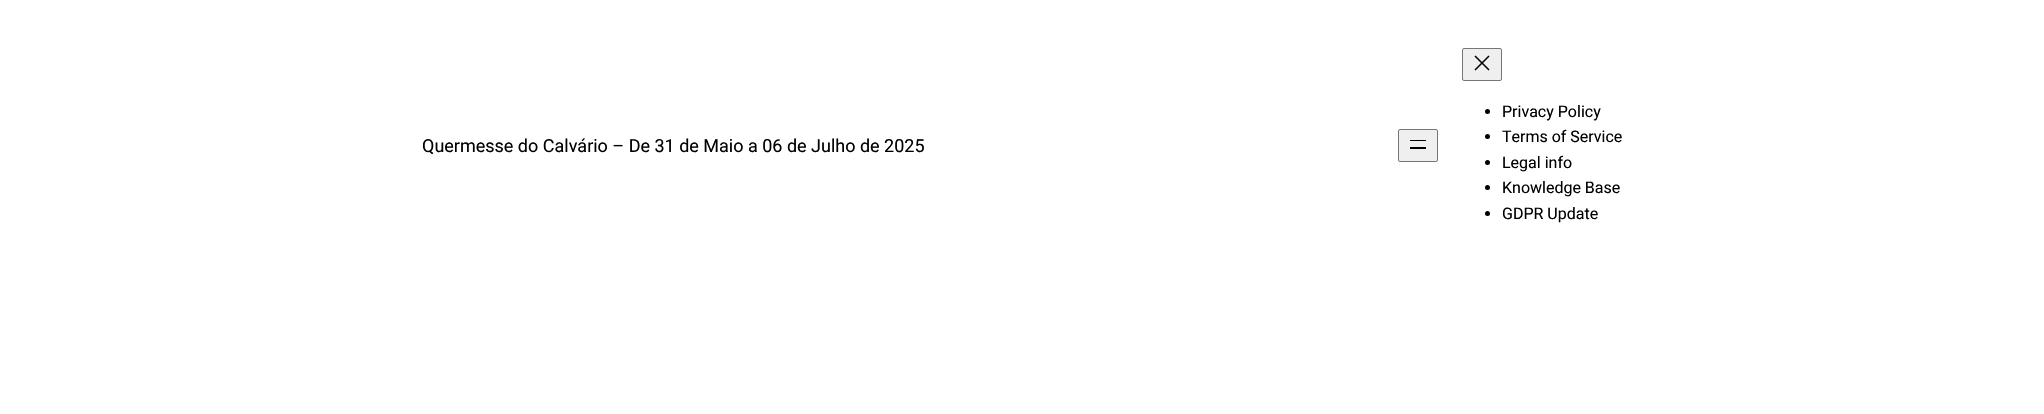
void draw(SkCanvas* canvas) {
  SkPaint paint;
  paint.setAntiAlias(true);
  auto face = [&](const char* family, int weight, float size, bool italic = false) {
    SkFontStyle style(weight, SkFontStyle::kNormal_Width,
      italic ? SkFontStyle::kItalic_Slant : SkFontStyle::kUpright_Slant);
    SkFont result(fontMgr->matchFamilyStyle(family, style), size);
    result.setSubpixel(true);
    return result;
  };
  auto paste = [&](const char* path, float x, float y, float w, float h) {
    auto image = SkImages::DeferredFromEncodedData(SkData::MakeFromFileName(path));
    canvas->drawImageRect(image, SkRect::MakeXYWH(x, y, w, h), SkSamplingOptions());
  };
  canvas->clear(0xffffffff);
  paint.setColor(0xffefefef);
  canvas->drawRoundRect(SkRect::MakeXYWH(1398.5f, 129.5f, 39, 32), 1.5f, 1.5f, paint);
  paint.setStroke(true);
  paint.setStrokeWidth(1);
  paint.setColor(0xff767676);
  canvas->drawRoundRect(SkRect::MakeXYWH(1398.5f, 129.5f, 39, 32), 1.5f, 1.5f, paint);
  paint.setStroke(false);
  paint.setColor(0xff000000);
  canvas->drawRect(SkRect::MakeXYWH(1410, 140, 16, 1), paint);
  canvas->drawRect(SkRect::MakeXYWH(1410, 147, 16, 2), paint);
  paint.setColor(0xffefefef);
  canvas->drawRoundRect(SkRect::MakeXYWH(1462.5f, 48.5f, 39, 32), 1.5f, 1.5f, paint);
  paint.setStroke(true);
  paint.setColor(0xff767676);
  canvas->drawRoundRect(SkRect::MakeXYWH(1462.5f, 48.5f, 39, 32), 1.5f, 1.5f, paint);
  paste("img/1.png", 1474, 55, 16, 16);
  paint.setStroke(false);
  paint.setColor(0xff000000);
  canvas->drawCircle(1487.5f, 111.5f, 2.5f, paint);
  canvas->drawCircle(1487.5f, 136.5f, 2.5f, paint);
  canvas->drawCircle(1487.5f, 162.5f, 2.5f, paint);
  canvas->drawCircle(1487.5f, 187.5f, 2.5f, paint);
  canvas->drawCircle(1487.5f, 213.5f, 2.5f, paint);
  auto f0 = face("Roboto", 400, 18);
  canvas->drawString("Quermesse do Calvário – De 31 de Maio a 06 de Julho de 2025", 422, 152, f0, paint);
  auto f1 = face("Roboto", 400, 16);
  {
    const struct { const char* s; float x, y; } items[] = {
      {"Privacy Policy", 1502, 117},
      {"Terms of Service", 1502, 142},
      {"Legal info", 1502, 168},
      {"Knowledge Base", 1502, 193},
      {"GDPR Update", 1502, 219},
    };
    for (auto [s, x, y] : items) {
      canvas->drawString(s, x, y, f1, paint);
    }
  }
}
